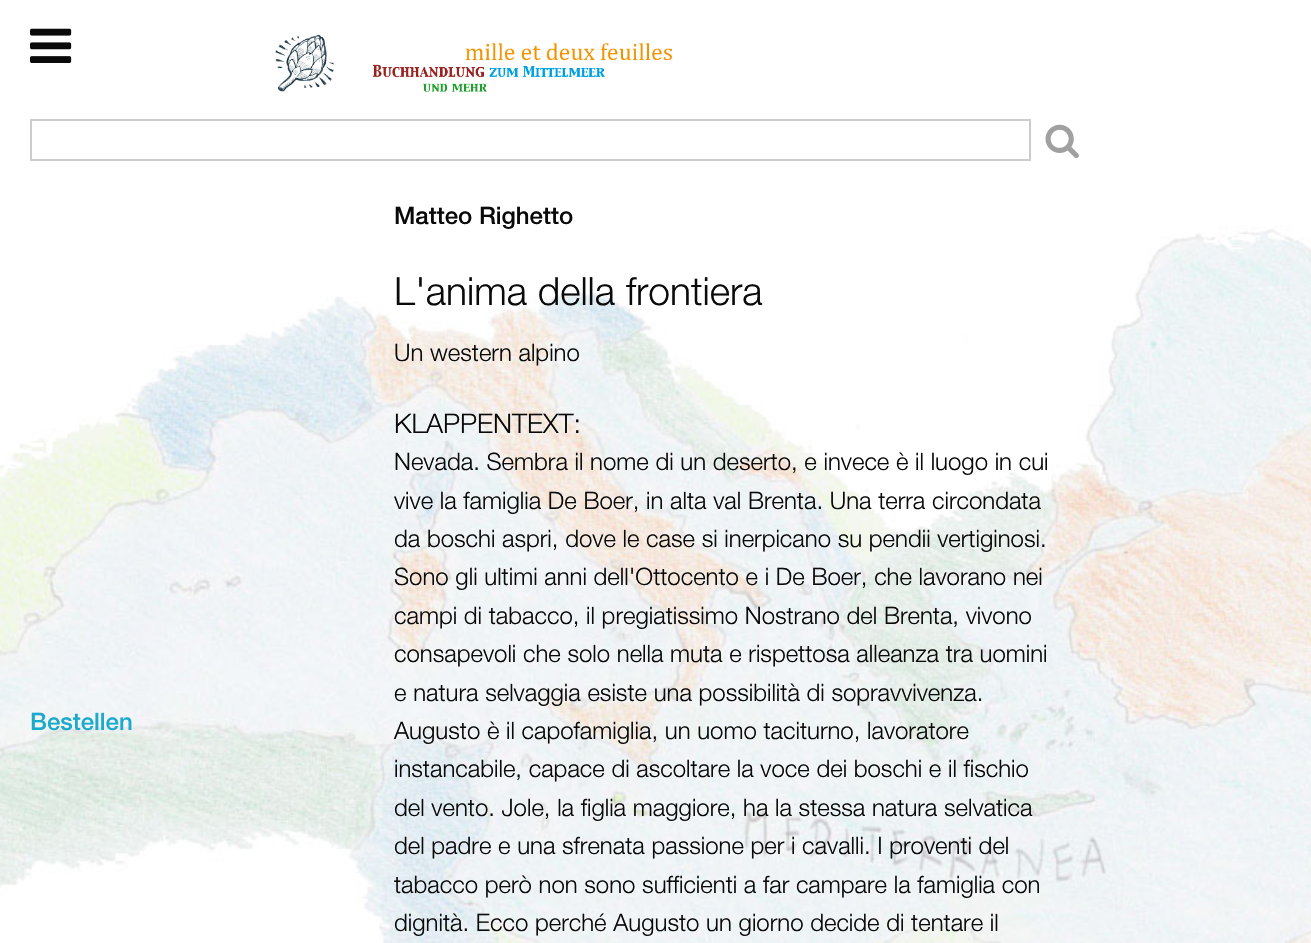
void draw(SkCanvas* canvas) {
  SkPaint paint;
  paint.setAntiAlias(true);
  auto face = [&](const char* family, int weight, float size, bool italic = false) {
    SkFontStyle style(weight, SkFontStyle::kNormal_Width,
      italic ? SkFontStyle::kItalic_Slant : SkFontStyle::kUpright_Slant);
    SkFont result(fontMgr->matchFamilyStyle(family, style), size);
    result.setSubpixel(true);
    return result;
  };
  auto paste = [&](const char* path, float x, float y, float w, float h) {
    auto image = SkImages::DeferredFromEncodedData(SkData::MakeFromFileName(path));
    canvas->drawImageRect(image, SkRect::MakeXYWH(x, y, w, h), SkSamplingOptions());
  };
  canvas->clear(0xffffffff);
  paste("img/1.png", 0, 225, 1311, 718);
  paste("img/2.png", 30, 28, 42, 35);
  paste("img/3.png", 275, 34, 398, 58);
  paint.setStroke(true);
  paint.setStrokeWidth(2);
  paint.setColor(0xffcccccc);
  canvas->drawRect(SkRect::MakeXYWH(31, 120, 999, 40), paint);
  paste("img/4.png", 1045, 124, 34, 35);
  auto f0 = face("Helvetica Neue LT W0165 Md", 500, 24);
  paint.setStroke(false);
  paint.setColor(0xff1ba9cc);
  canvas->drawString("Bestellen", 30, 730, f0, paint);
  paint.setColor(0xff0a0a0a);
  canvas->drawString("Matteo Righetto", 394, 224, f0, paint);
  auto f1 = face("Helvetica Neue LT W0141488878", 300, 39);
  canvas->drawString("L'anima della frontiera", 394, 305, f1, paint);
  auto f2 = face("Helvetica Neue LT W0141488878", 300, 24);
  canvas->drawString("Un western alpino", 394, 361, f2, paint);
  auto f3 = face("Helvetica Neue LT W0141488878", 300, 27);
  canvas->drawString("KLAPPENTEXT:", 394, 433, f3, paint);
  {
    const struct { const char* s; float x, y; } items[] = {
      {"Nevada. Sembra il nome di un deserto, e invece è il luogo in cui", 394, 470},
      {"vive la famiglia De Boer, in alta val Brenta. Una terra circondata", 394, 509},
      {"da boschi aspri, dove le case si inerpicano su pendii vertiginosi.", 394, 547},
      {"Sono gli ultimi anni dell'Ottocento e i De Boer, che lavorano nei", 394, 585},
      {"campi di tabacco, il pregiatissimo Nostrano del Brenta, vivono", 394, 624},
      {"consapevoli che solo nella muta e rispettosa alleanza tra uomini", 394, 662},
      {"e natura selvaggia esiste una possibilità di sopravvivenza.", 394, 701},
      {"Augusto è il capofamiglia, un uomo taciturno, lavoratore", 394, 739},
      {"instancabile, capace di ascoltare la voce dei boschi e il fischio", 394, 777},
      {"del vento. Jole, la figlia maggiore, ha la stessa natura selvatica", 394, 816},
      {"del padre e una sfrenata passione per i cavalli. I proventi del", 394, 854},
      {"tabacco però non sono sufficienti a far campare la famiglia con", 394, 893},
      {"dignità. Ecco perché Augusto un giorno decide di tentare il", 394, 931},
    };
    for (auto [s, x, y] : items) {
      canvas->drawString(s, x, y, f2, paint);
    }
  }
}
